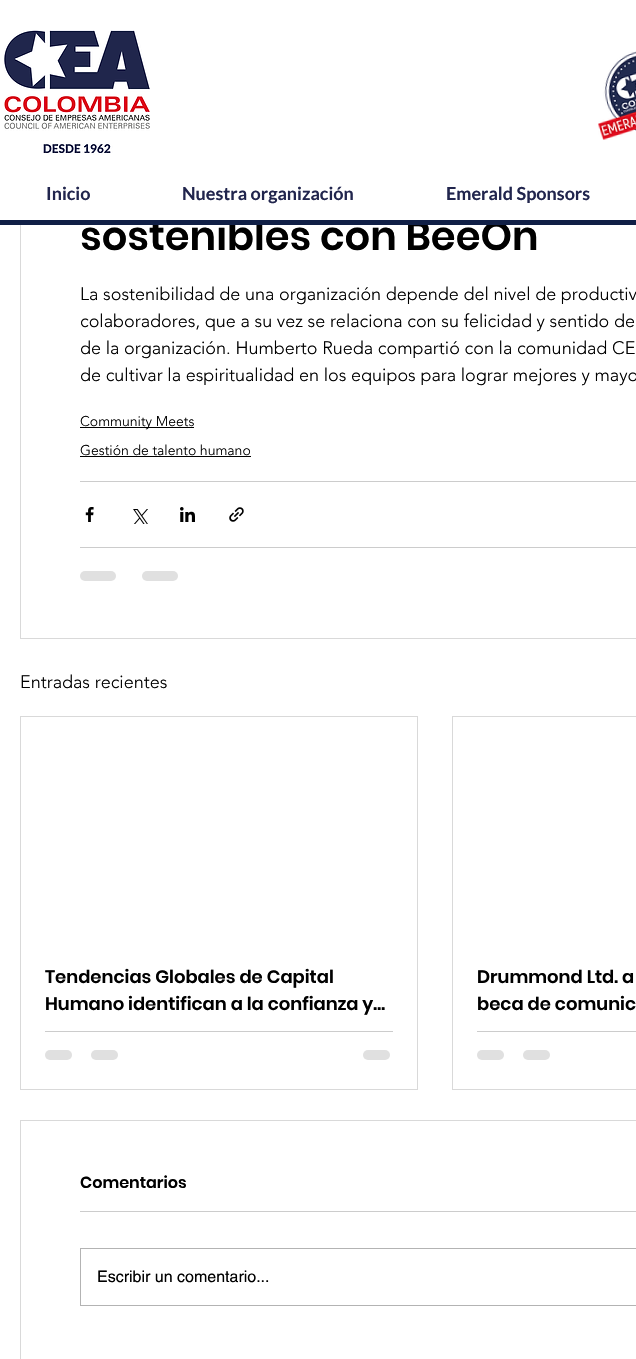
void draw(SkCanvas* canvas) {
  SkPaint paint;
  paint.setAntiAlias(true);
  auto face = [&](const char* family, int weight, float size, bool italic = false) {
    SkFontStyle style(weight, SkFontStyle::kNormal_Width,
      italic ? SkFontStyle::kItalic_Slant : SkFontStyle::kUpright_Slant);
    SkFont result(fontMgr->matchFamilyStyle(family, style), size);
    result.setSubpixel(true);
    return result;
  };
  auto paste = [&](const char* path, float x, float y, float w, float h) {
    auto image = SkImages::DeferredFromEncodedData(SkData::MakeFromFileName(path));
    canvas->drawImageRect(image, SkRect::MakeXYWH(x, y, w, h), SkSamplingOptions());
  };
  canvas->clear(0xffffffff);
  paint.setStroke(true);
  paint.setStrokeWidth(1);
  paint.setColor(0xffd9d9d9);
  canvas->drawRect(SkRect::MakeXYWH(20.5f, 61.5f, 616, 577), paint);
  paint.setStroke(false);
  {
    const struct { float x, y, w, h; SkColor color; } items[] = {
      {80, 427, 114, 1, 0xff000000},
      {80, 456, 171, 1, 0xff000000},
      {80, 481, 556, 1, 0xffcccccc},
    };
    for (auto [x, y, w, h, color] : items) {
      paint.setColor(color);
      canvas->drawRect(SkRect::MakeXYWH(x, y, w, h), paint);
    }
  }
  paste("img/3.png", 85, 507, 9, 15);
  paste("img/4.png", 133, 509, 15, 15);
  paste("img/5.png", 180, 507, 15, 15);
  paste("img/6.png", 229, 507, 15, 15);
  canvas->drawRect(SkRect::MakeXYWH(80, 547, 556, 1), paint);
  paint.setColor(0xffe0e0e0);
  canvas->drawRoundRect(SkRect::MakeXYWH(80, 571, 36, 10), 5, 5, paint);
  canvas->drawRoundRect(SkRect::MakeXYWH(142, 571, 36, 10), 5, 5, paint);
  paint.setStroke(true);
  paint.setColor(0xffd9d9d9);
  canvas->drawRect(SkRect::MakeXYWH(20.5f, 716.5f, 397, 373), paint);
  paint.setStroke(false);
  paint.setColor(0xffcccccc);
  canvas->drawRect(SkRect::MakeXYWH(45, 1031, 348, 1), paint);
  paint.setColor(0xffe0e0e0);
  canvas->drawRoundRect(SkRect::MakeXYWH(45, 1050, 27, 10), 5, 5, paint);
  canvas->drawRoundRect(SkRect::MakeXYWH(91, 1050, 27, 10), 5, 5, paint);
  canvas->drawRoundRect(SkRect::MakeXYWH(363, 1050, 27, 10), 5, 5, paint);
  paint.setStroke(true);
  paint.setColor(0xffd9d9d9);
  canvas->drawRect(SkRect::MakeXYWH(452.5f, 716.5f, 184, 373), paint);
  paint.setStroke(false);
  paint.setColor(0xffcccccc);
  canvas->drawRect(SkRect::MakeXYWH(477, 1031, 159, 1), paint);
  paint.setColor(0xffe0e0e0);
  canvas->drawRoundRect(SkRect::MakeXYWH(477, 1050, 27, 10), 5, 5, paint);
  canvas->drawRoundRect(SkRect::MakeXYWH(523, 1050, 27, 10), 5, 5, paint);
  paint.setStroke(true);
  paint.setColor(0xffd9d9d9);
  canvas->drawRect(SkRect::MakeXYWH(20.5f, 1120.5f, 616, 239), paint);
  paint.setStroke(false);
  paint.setColor(0xffcccccc);
  canvas->drawRect(SkRect::MakeXYWH(80, 1211, 556, 1), paint);
  paint.setStroke(true);
  paint.setColor(0xffb3b3b3);
  canvas->drawRect(SkRect::MakeXYWH(80.5f, 1248.5f, 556, 57), paint);
  auto f0 = face("Poppins", 600, 40);
  paint.setStroke(false);
  paint.setColor(0xff000000);
  canvas->drawString("sostenibles con BeeOn", 80, 250, f0, paint);
  paint.setColor(0xffffffff);
  canvas->drawRect(SkRect::MakeXYWH(20, 61, 616, 159), paint);
  auto f1 = face("Lato", 700, 18);
  paint.setColor(0xff21254d);
  {
    const struct { const char* s; float x, y; } items[] = {
      {"Emerald Sponsors", 446, 200},
      {"Nuestra organización", 182, 200},
      {"Inicio", 46, 200},
    };
    for (auto [s, x, y] : items) {
      canvas->drawString(s, x, y, f1, paint);
    }
  }
  paste("img/2.png", 598, 51, 38, 89);
  paste("img/1.png", 4, 30, 146, 125);
  paint.setColor(0xff101f46);
  canvas->drawRect(SkRect::MakeXYWH(0, 220, 636, 5), paint);
  auto f2 = face("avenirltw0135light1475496", 300, 18);
  paint.setColor(0xff000000);
  {
    const struct { const char* s; float x, y; } items[] = {
      {"La sostenibilidad de una organización depende del nivel de productiv", 80, 300},
      {"colaboradores, que a su vez se relaciona con su felicidad y sentido de", 80, 327},
      {"de la organización. Humberto Rueda compartió con la comunidad CE", 80, 354},
      {"de cultivar la espiritualidad en los equipos para lograr mejores y mayo", 80, 381},
    };
    for (auto [s, x, y] : items) {
      canvas->drawString(s, x, y, f2, paint);
    }
  }
  auto f3 = face("avenirltw0135light1475496", 300, 14);
  canvas->drawString("Community Meets", 80, 426, f3, paint);
  canvas->drawString("Gestión de talento humano", 80, 455, f3, paint);
  canvas->drawString("Entradas recientes", 20, 688, f2, paint);
  auto f4 = face("Poppins", 600, 18);
  {
    const struct { const char* s; float x, y; } items[] = {
      {"Tendencias Globales de Capital", 45, 983},
      {"Humano identifican a la confianza y…", 45, 1010},
      {"Drummond Ltd. a", 477, 983},
      {"beca de comunic", 477, 1010},
    };
    for (auto [s, x, y] : items) {
      canvas->drawString(s, x, y, f4, paint);
    }
  }
  auto f5 = face("Poppins", 600, 16);
  canvas->drawString("Comentarios", 80, 1188, f5, paint);
  auto f6 = face("helvetica", 400, 16);
  canvas->drawString("Escribir un comentario...", 97, 1282, f6, paint);
}
